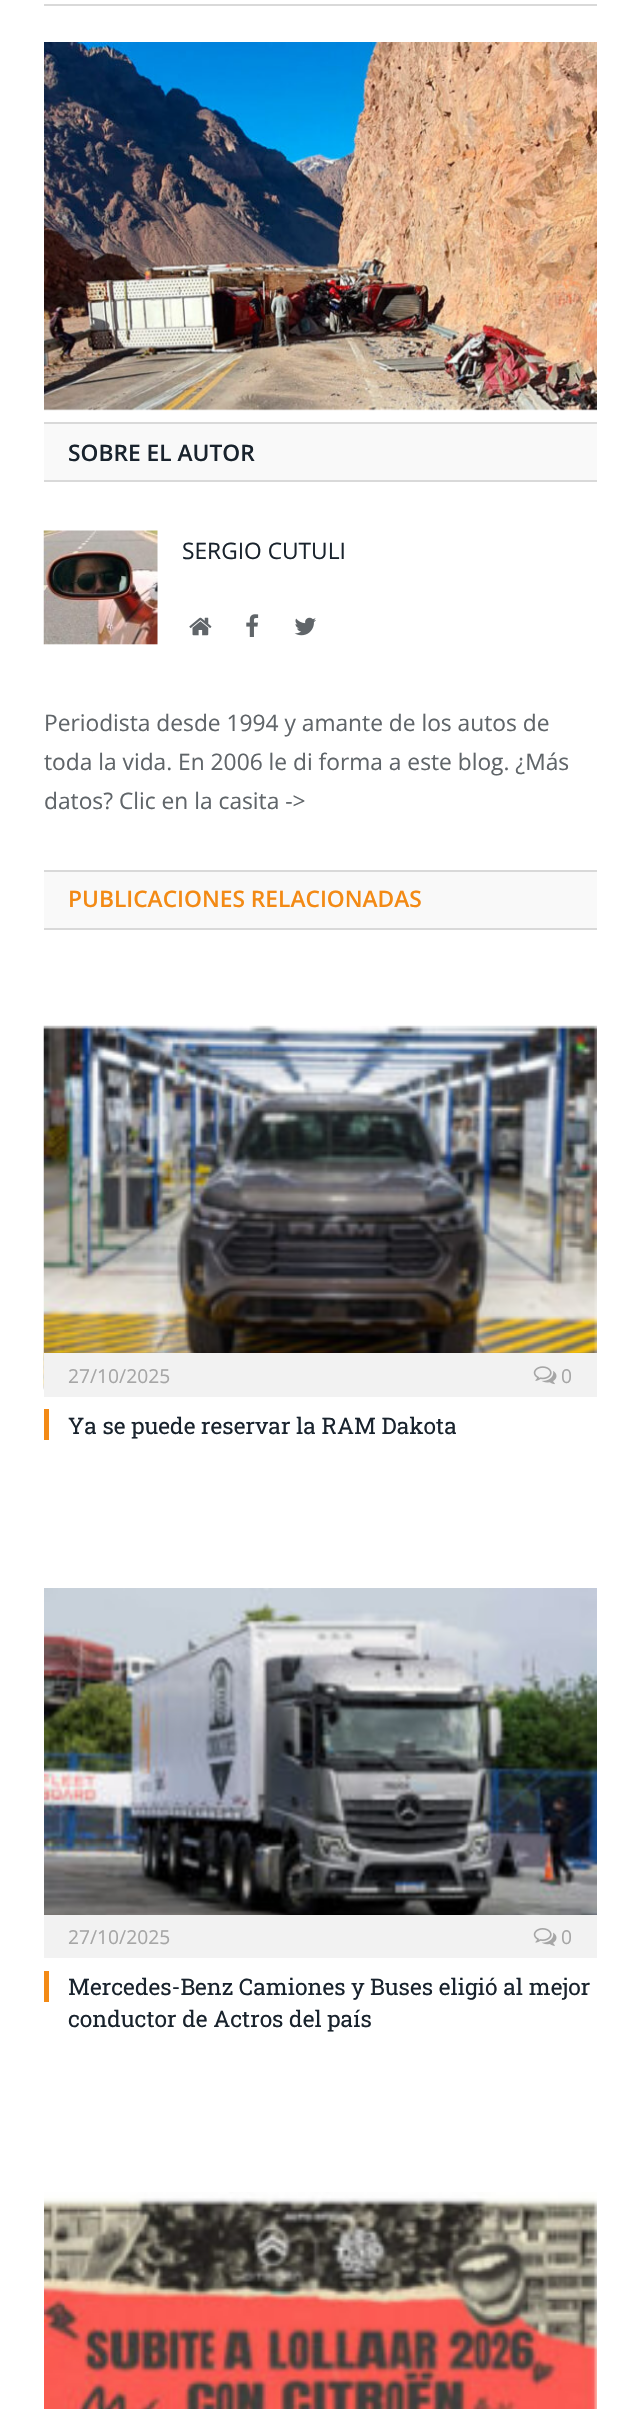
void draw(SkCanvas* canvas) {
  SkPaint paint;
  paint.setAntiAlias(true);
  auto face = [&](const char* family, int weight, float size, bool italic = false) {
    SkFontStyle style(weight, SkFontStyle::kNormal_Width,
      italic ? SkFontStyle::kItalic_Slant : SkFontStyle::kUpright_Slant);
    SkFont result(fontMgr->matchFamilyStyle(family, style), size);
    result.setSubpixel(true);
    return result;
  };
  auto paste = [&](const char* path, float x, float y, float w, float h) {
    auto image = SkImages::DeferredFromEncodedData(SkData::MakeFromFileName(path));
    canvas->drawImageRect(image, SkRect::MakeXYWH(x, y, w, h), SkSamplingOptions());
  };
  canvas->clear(0xffffffff);
  paint.setColor(0xffd9d9d9);
  canvas->drawRect(SkRect::MakeXYWH(44, 4, 553, 2), paint);
  paste("img/1.png", 44, 42, 553, 369);
  {
    const struct { float x, y, w, h; SkColor color; } items[] = {
      {44, 424, 553, 56, 0xfff9f9f9},
      {44, 422, 553, 2, 0xffd9d9d9},
      {44, 480, 553, 2, 0xffd9d9d9},
    };
    for (auto [x, y, w, h, color] : items) {
      paint.setColor(color);
      canvas->drawRect(SkRect::MakeXYWH(x, y, w, h), paint);
    }
  }
  paste("img/2.png", 43, 530, 115, 115);
  paste("img/3.png", 189, 617, 23, 19);
  paste("img/4.png", 246, 614, 13, 23);
  paste("img/5.png", 294, 617, 22, 19);
  {
    const struct { float x, y, w, h; SkColor color; } items[] = {
      {44, 872, 553, 56, 0xfff9f9f9},
      {44, 870, 553, 2, 0xffd9d9d9},
      {44, 928, 553, 2, 0xffd9d9d9},
    };
    for (auto [x, y, w, h, color] : items) {
      paint.setColor(color);
      canvas->drawRect(SkRect::MakeXYWH(x, y, w, h), paint);
    }
  }
  paste("img/6.png", 43, 1025, 554, 365);
  paint.setColor(0xfff2f2f2);
  canvas->drawRect(SkRect::MakeXYWH(44, 1353, 553, 44), paint);
  paste("img/7.png", 533, 1366, 24, 19);
  paint.setColor(0xfff38a15);
  canvas->drawRect(SkRect::MakeXYWH(44, 1409, 5, 31), paint);
  paste("img/8.png", 44, 1588, 553, 327);
  paint.setColor(0xfff2f2f2);
  canvas->drawRect(SkRect::MakeXYWH(44, 1915, 553, 43), paint);
  paste("img/9.png", 533, 1928, 24, 18);
  paint.setColor(0xfff38a15);
  canvas->drawRect(SkRect::MakeXYWH(44, 1971, 5, 31), paint);
  paste("img/10.png", 44, 2192, 553, 217);
  auto f0 = face("Open Sans", 600, 22.75f);
  paint.setColor(0xff19232d);
  canvas->drawString("SOBRE EL AUTOR", 68, 461, f0, paint);
  auto f1 = face("Open Sans", 400, 22.75f);
  canvas->drawString("SERGIO CUTULI", 182, 559, f1, paint);
  paint.setColor(0xff606569);
  {
    const struct { const char* s; float x, y; } items[] = {
      {"Periodista desde 1994 y amante de los autos de", 44, 731},
      {"toda la vida. En 2006 le di forma a este blog. ¿Más", 44, 770},
      {"datos? Clic en la casita ->", 44, 809},
    };
    for (auto [s, x, y] : items) {
      canvas->drawString(s, x, y, f1, paint);
    }
  }
  paint.setColor(0xfff38a15);
  canvas->drawString("PUBLICACIONES RELACIONADAS", 68, 907, f0, paint);
  auto f2 = face("Open Sans", 400, 19.25f);
  paint.setColor(0xffa6a6a6);
  canvas->drawString("27/10/2025", 68, 1383, f2, paint);
  canvas->drawString("0", 561, 1383, f2, paint);
  auto f3 = face("Roboto Slab", 400, 22.75f);
  paint.setColor(0xff19232d);
  canvas->drawString("Ya se puede reservar la RAM Dakota", 68, 1434, f3, paint);
  paint.setColor(0xffa6a6a6);
  canvas->drawString("27/10/2025", 68, 1944, f2, paint);
  canvas->drawString("0", 561, 1944, f2, paint);
  paint.setColor(0xff19232d);
  canvas->drawString("Mercedes-Benz Camiones y Buses eligió al mejor", 68, 1995, f3, paint);
  canvas->drawString("conductor de Actros del país", 68, 2027, f3, paint);
}
